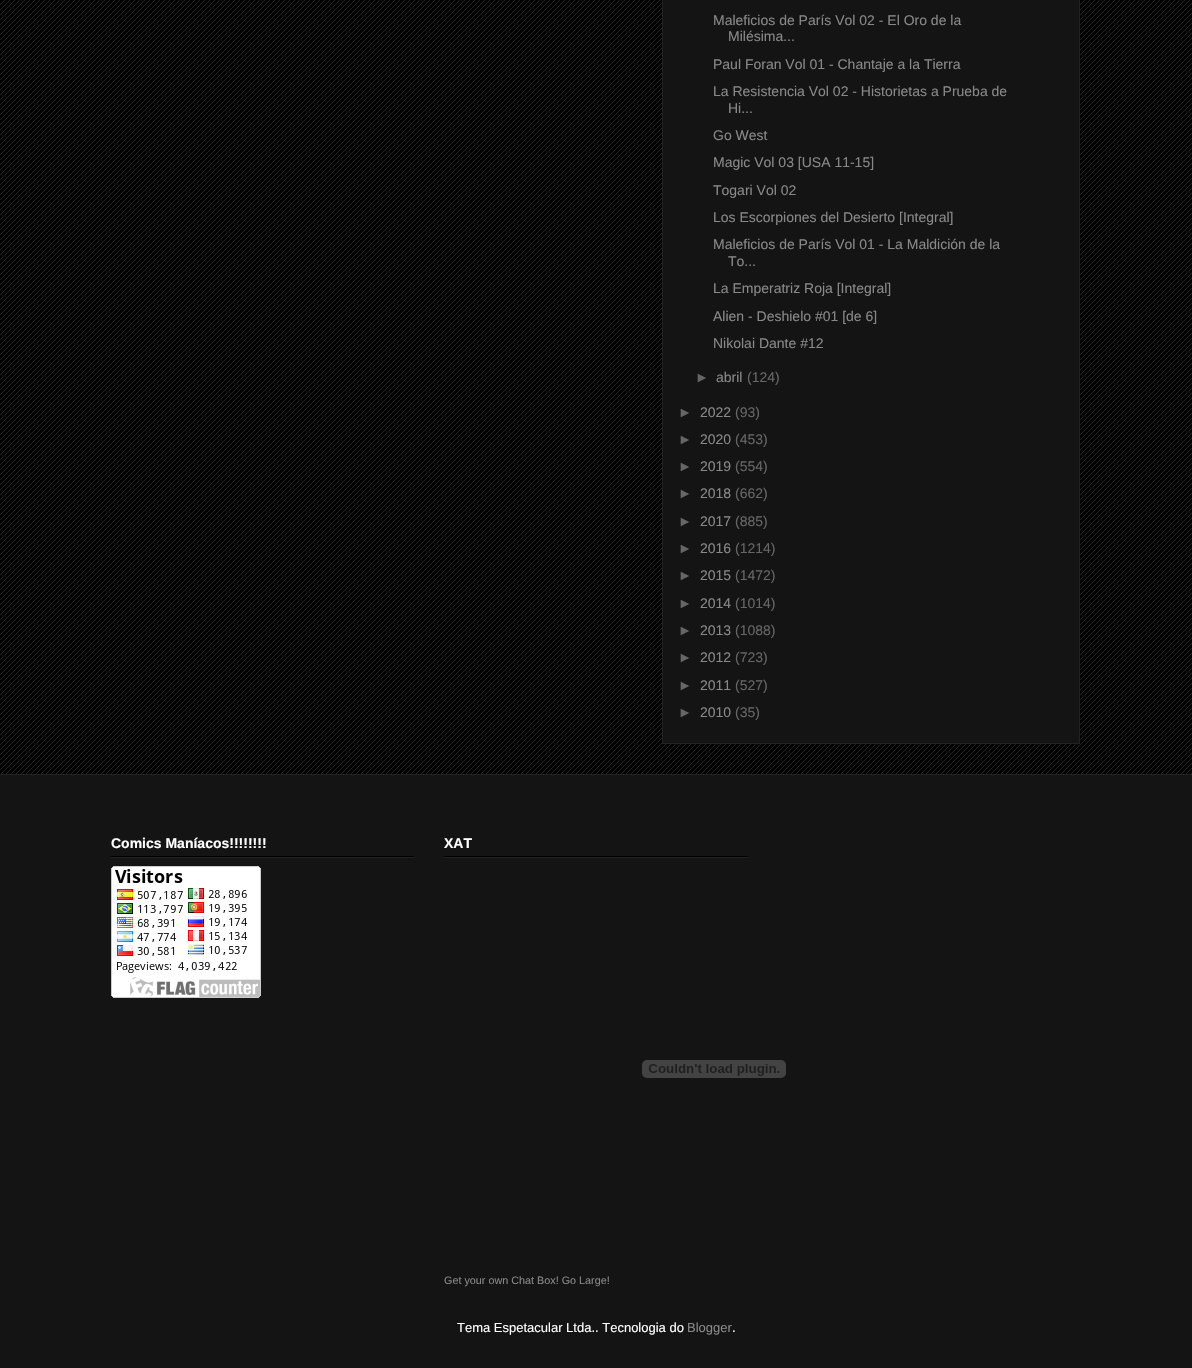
void draw(SkCanvas* canvas) {
  SkPaint paint;
  paint.setAntiAlias(true);
  auto face = [&](const char* family, int weight, float size, bool italic = false) {
    SkFontStyle style(weight, SkFontStyle::kNormal_Width,
      italic ? SkFontStyle::kItalic_Slant : SkFontStyle::kUpright_Slant);
    SkFont result(fontMgr->matchFamilyStyle(family, style), size);
    result.setSubpixel(true);
    return result;
  };
  auto paste = [&](const char* path, float x, float y, float w, float h) {
    auto image = SkImages::DeferredFromEncodedData(SkData::MakeFromFileName(path));
    canvas->drawImageRect(image, SkRect::MakeXYWH(x, y, w, h), SkSamplingOptions());
  };
  canvas->clear(0xff000000);
  paste("img/1.png", 0, 0, 1192, 774);
  paint.setColor(0xff141414);
  canvas->drawRect(SkRect::MakeXYWH(662.5f, -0.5f, 417, 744), paint);
  paint.setStroke(true);
  paint.setStrokeWidth(1);
  paint.setColor(0xff222222);
  canvas->drawRect(SkRect::MakeXYWH(662.5f, -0.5f, 417, 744), paint);
  paint.setStroke(false);
  {
    const struct { float x, y, w, h; SkColor color; } items[] = {
      {0, 775, 1192, 593, 0xff141414},
      {0, 774, 1192, 1, 0xff222222},
      {111, 856, 303, 1, 0xff000000},
      {111, 857, 303, 1, 0xff222222},
    };
    for (auto [x, y, w, h, color] : items) {
      paint.setColor(color);
      canvas->drawRect(SkRect::MakeXYWH(x, y, w, h), paint);
    }
  }
  paste("img/2.png", 111, 866, 150, 132);
  paint.setColor(0xff000000);
  canvas->drawRect(SkRect::MakeXYWH(444, 856, 304, 1), paint);
  paint.setColor(0xff222222);
  canvas->drawRect(SkRect::MakeXYWH(444, 857, 304, 1), paint);
  paste("img/3.png", 642, 1060, 144, 18);
  auto f0 = face("Liberation Sans", 400, 14);
  paint.setColor(0xff888888);
  {
    const struct { const char* s; float x, y; } items[] = {
      {"Maleficios de París Vol 02 - El Oro de la", 713, 25},
      {"Milésima...", 728, 41},
      {"Paul Foran Vol 01 - Chantaje a la Tierra", 713, 69},
      {"La Resistencia Vol 02 - Historietas a Prueba de", 713, 96},
      {"Hi...", 728, 113},
      {"Go West", 713, 140},
      {"Magic Vol 03 [USA 11-15]", 713, 167},
      {"Togari Vol 02", 713, 195},
      {"Los Escorpiones del Desierto [Integral]", 713, 222},
      {"Maleficios de París Vol 01 - La Maldición de la", 713, 249},
      {"To...", 728, 266},
      {"La Emperatriz Roja [Integral]", 713, 293},
      {"Alien - Deshielo #01 [de 6]", 713, 321},
      {"Nikolai Dante #12", 713, 348},
    };
    for (auto [s, x, y] : items) {
      canvas->drawString(s, x, y, f0, paint);
    }
  }
  paint.setColor(0xff666666);
  canvas->drawString("►", 695, 382, f0, paint);
  paint.setColor(0xff888888);
  canvas->drawString("abril", 716, 382, f0, paint);
  paint.setColor(0xff666666);
  canvas->drawString("(124)", 747, 382, f0, paint);
  canvas->drawString("►", 678, 417, f0, paint);
  paint.setColor(0xff888888);
  canvas->drawString("2022", 700, 417, f0, paint);
  paint.setColor(0xff666666);
  canvas->drawString("(93)", 735, 417, f0, paint);
  canvas->drawString("►", 678, 444, f0, paint);
  paint.setColor(0xff888888);
  canvas->drawString("2020", 700, 444, f0, paint);
  paint.setColor(0xff666666);
  canvas->drawString("(453)", 735, 444, f0, paint);
  canvas->drawString("►", 678, 471, f0, paint);
  paint.setColor(0xff888888);
  canvas->drawString("2019", 700, 471, f0, paint);
  paint.setColor(0xff666666);
  canvas->drawString("(554)", 735, 471, f0, paint);
  canvas->drawString("►", 678, 498, f0, paint);
  paint.setColor(0xff888888);
  canvas->drawString("2018", 700, 498, f0, paint);
  paint.setColor(0xff666666);
  canvas->drawString("(662)", 735, 498, f0, paint);
  canvas->drawString("►", 678, 526, f0, paint);
  paint.setColor(0xff888888);
  canvas->drawString("2017", 700, 526, f0, paint);
  paint.setColor(0xff666666);
  canvas->drawString("(885)", 735, 526, f0, paint);
  canvas->drawString("►", 678, 553, f0, paint);
  paint.setColor(0xff888888);
  canvas->drawString("2016", 700, 553, f0, paint);
  paint.setColor(0xff666666);
  canvas->drawString("(1214)", 735, 553, f0, paint);
  canvas->drawString("►", 678, 580, f0, paint);
  paint.setColor(0xff888888);
  canvas->drawString("2015", 700, 580, f0, paint);
  paint.setColor(0xff666666);
  canvas->drawString("(1472)", 735, 580, f0, paint);
  canvas->drawString("►", 678, 608, f0, paint);
  paint.setColor(0xff888888);
  canvas->drawString("2014", 700, 608, f0, paint);
  paint.setColor(0xff666666);
  canvas->drawString("(1014)", 735, 608, f0, paint);
  canvas->drawString("►", 678, 635, f0, paint);
  paint.setColor(0xff888888);
  canvas->drawString("2013", 700, 635, f0, paint);
  paint.setColor(0xff666666);
  canvas->drawString("(1088)", 735, 635, f0, paint);
  canvas->drawString("►", 678, 662, f0, paint);
  paint.setColor(0xff888888);
  canvas->drawString("2012", 700, 662, f0, paint);
  paint.setColor(0xff666666);
  canvas->drawString("(723)", 735, 662, f0, paint);
  canvas->drawString("►", 678, 690, f0, paint);
  paint.setColor(0xff888888);
  canvas->drawString("2011", 700, 690, f0, paint);
  paint.setColor(0xff666666);
  canvas->drawString("(527)", 735, 690, f0, paint);
  canvas->drawString("►", 678, 717, f0, paint);
  paint.setColor(0xff888888);
  canvas->drawString("2010", 700, 717, f0, paint);
  paint.setColor(0xff666666);
  canvas->drawString("(35)", 735, 717, f0, paint);
  auto f1 = face("Liberation Sans", 700, 14);
  paint.setColor(0xffffffff);
  canvas->drawString("Comics Maníacos!!!!!!!!", 111, 848, f1, paint);
  canvas->drawString("XAT", 444, 848, f1, paint);
  auto f2 = face("Liberation Sans", 400, 10.8f);
  paint.setColor(0xff888888);
  canvas->drawString("Get your own Chat Box! Go Large!", 444, 1284, f2, paint);
  auto f3 = face("Liberation Sans", 400, 13);
  paint.setColor(0xffffffff);
  canvas->drawString("Tema Espetacular Ltda.. Tecnologia do", 457, 1332, f3, paint);
  paint.setColor(0xff888888);
  canvas->drawString("Blogger", 687, 1332, f3, paint);
  paint.setColor(0xffffffff);
  canvas->drawString(".", 732, 1332, f3, paint);
}
